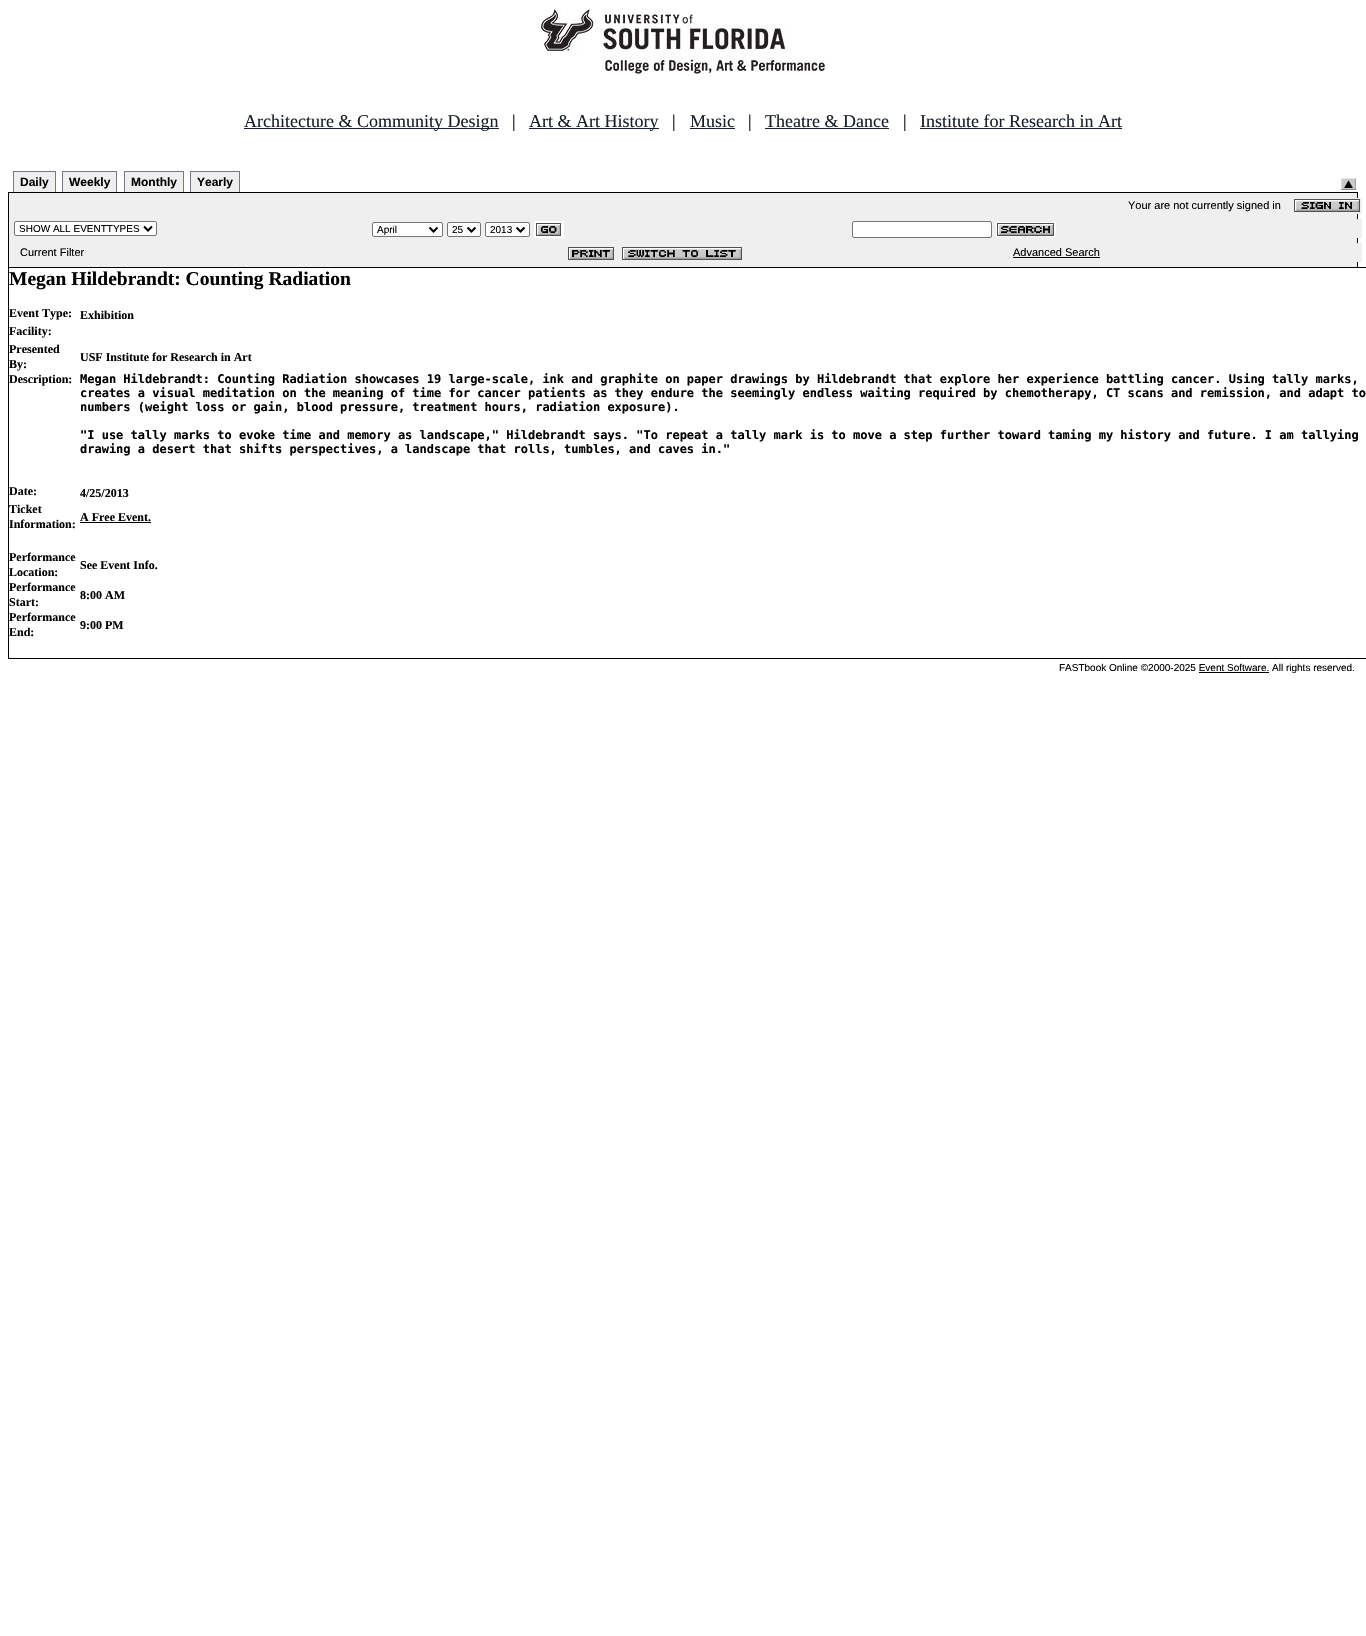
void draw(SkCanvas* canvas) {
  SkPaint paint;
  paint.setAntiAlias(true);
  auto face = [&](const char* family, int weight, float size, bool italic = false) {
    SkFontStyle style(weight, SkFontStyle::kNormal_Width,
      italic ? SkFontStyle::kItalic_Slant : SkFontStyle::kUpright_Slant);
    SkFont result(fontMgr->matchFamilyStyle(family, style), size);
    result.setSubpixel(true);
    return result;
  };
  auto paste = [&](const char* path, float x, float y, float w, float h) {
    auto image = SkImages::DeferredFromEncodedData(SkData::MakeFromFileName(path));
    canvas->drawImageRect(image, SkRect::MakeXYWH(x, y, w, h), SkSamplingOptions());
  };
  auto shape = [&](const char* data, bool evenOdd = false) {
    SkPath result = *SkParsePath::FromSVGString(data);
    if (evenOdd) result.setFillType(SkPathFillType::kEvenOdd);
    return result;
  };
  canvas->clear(0xffffffff);
  paste("img/1.png", 537, 8, 288, 67);
  {
    const struct { float x, y, w, h; SkColor color; } items[] = {
      {244, 128, 255, 1, 0xff17202a},
      {529, 128, 130, 1, 0xff17202a},
      {690, 128, 45, 1, 0xff17202a},
      {765, 128, 124, 1, 0xff17202a},
      {920, 128, 202, 1, 0xff17202a},
      {14, 172, 41, 20, 0xffefefef},
      {13, 171, 43, 1, 0xff777788},
      {55, 171, 1, 21, 0xff777788},
      {13, 171, 1, 21, 0xff777788},
      {63, 172, 53, 20, 0xffefefef},
      {62, 171, 55, 1, 0xff777788},
      {116, 171, 1, 21, 0xff777788},
      {62, 171, 1, 21, 0xff777788},
      {125, 172, 58, 20, 0xffefefef},
      {124, 171, 60, 1, 0xff777788},
      {183, 171, 1, 21, 0xff777788},
      {124, 171, 1, 21, 0xff777788},
      {191, 172, 48, 20, 0xffefefef},
      {190, 171, 50, 1, 0xff777788},
      {239, 171, 1, 21, 0xff777788},
      {190, 171, 1, 21, 0xff777788},
    };
    for (auto [x, y, w, h, color] : items) {
      paint.setColor(color);
      canvas->drawRect(SkRect::MakeXYWH(x, y, w, h), paint);
    }
  }
  paste("img/2.png", 1341, 178, 15, 12);
  {
    const struct { float x, y, w, h; SkColor color; } items[] = {
      {9, 193, 1348, 74, 0xffefefef},
      {8, 192, 1350, 1, 0xff000000},
      {1357, 192, 1, 75, 0xff000000},
      {8, 192, 1, 75, 0xff000000},
      {1357, 198, 5, 16, 0xffefefef},
    };
    for (auto [x, y, w, h, color] : items) {
      paint.setColor(color);
      canvas->drawRect(SkRect::MakeXYWH(x, y, w, h), paint);
    }
  }
  paste("img/3.png", 1294, 199, 66, 13);
  canvas->drawRect(SkRect::MakeXYWH(1357, 219, 5, 19), paint);
  paint.setColor(0xffffffff);
  canvas->drawRoundRect(SkRect::MakeXYWH(14.5f, 221.5f, 142, 14), 1.5f, 1.5f, paint);
  paint.setStroke(true);
  paint.setStrokeWidth(1);
  paint.setColor(0xff767676);
  canvas->drawRoundRect(SkRect::MakeXYWH(14.5f, 221.5f, 142, 14), 1.5f, 1.5f, paint);
  paint.setStrokeWidth(2);
  paint.setColor(0xff000000);
  canvas->drawPath(shape("M144 226.5L148 230.5L152 226.5"), paint);
  paint.setStroke(false);
  paint.setColor(0xffffffff);
  canvas->drawRoundRect(SkRect::MakeXYWH(372.5f, 222.5f, 70, 14), 1.5f, 1.5f, paint);
  paint.setStroke(true);
  paint.setStrokeWidth(1);
  paint.setColor(0xff767676);
  canvas->drawRoundRect(SkRect::MakeXYWH(372.5f, 222.5f, 70, 14), 1.5f, 1.5f, paint);
  paint.setStrokeWidth(2);
  paint.setColor(0xff000000);
  canvas->drawPath(shape("M429.5 227.5L433.5 231.5L437.5 227.5"), paint);
  paint.setStroke(false);
  paint.setColor(0xffffffff);
  canvas->drawRoundRect(SkRect::MakeXYWH(447.5f, 222.5f, 33, 14), 1.5f, 1.5f, paint);
  paint.setStroke(true);
  paint.setStrokeWidth(1);
  paint.setColor(0xff767676);
  canvas->drawRoundRect(SkRect::MakeXYWH(447.5f, 222.5f, 33, 14), 1.5f, 1.5f, paint);
  paint.setStrokeWidth(2);
  paint.setColor(0xff000000);
  canvas->drawPath(shape("M467.5 227.5L471.5 231.5L475.5 227.5"), paint);
  paint.setStroke(false);
  paint.setColor(0xffffffff);
  canvas->drawRoundRect(SkRect::MakeXYWH(485.5f, 222.5f, 44, 14), 1.5f, 1.5f, paint);
  paint.setStroke(true);
  paint.setStrokeWidth(1);
  paint.setColor(0xff767676);
  canvas->drawRoundRect(SkRect::MakeXYWH(485.5f, 222.5f, 44, 14), 1.5f, 1.5f, paint);
  paint.setStrokeWidth(2);
  paint.setColor(0xff000000);
  canvas->drawPath(shape("M516.5 227.5L520.5 231.5L524.5 227.5"), paint);
  paint.setStroke(false);
  paint.setColor(0xffffffff);
  canvas->drawRect(SkRect::MakeXYWH(534, 221, 30, 17), paint);
  paste("img/4.png", 536, 223, 25, 13);
  canvas->drawRoundRect(SkRect::MakeXYWH(852.5f, 221.5f, 139, 16), 1.5f, 1.5f, paint);
  paint.setStroke(true);
  paint.setStrokeWidth(1);
  paint.setColor(0xff767676);
  canvas->drawRoundRect(SkRect::MakeXYWH(852.5f, 221.5f, 139, 16), 1.5f, 1.5f, paint);
  paint.setStroke(false);
  paint.setColor(0xffffffff);
  canvas->drawRect(SkRect::MakeXYWH(996, 222, 60, 15), paint);
  paste("img/5.png", 997, 223, 57, 13);
  paint.setColor(0xffefefef);
  canvas->drawRect(SkRect::MakeXYWH(1357, 243, 5, 19), paint);
  paste("img/6.png", 568, 247, 46, 13);
  paste("img/7.png", 622, 247, 120, 13);
  paint.setColor(0xff000000);
  canvas->drawRect(SkRect::MakeXYWH(1013, 257, 87, 1), paint);
  paint.setStroke(true);
  canvas->drawRect(SkRect::MakeXYWH(8.5f, 267.5f, 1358, 391), paint);
  paint.setStroke(false);
  canvas->drawRect(SkRect::MakeXYWH(80, 522, 71, 1), paint);
  canvas->drawRect(SkRect::MakeXYWH(1199, 672, 70, 1), paint);
  auto f0 = face("Liberation Serif", 400, 18);
  paint.setColor(0xff17202a);
  canvas->drawString("Architecture & Community Design", 244, 127, f0, paint);
  paint.setColor(0xff000000);
  canvas->drawString("|", 512, 127, f0, paint);
  paint.setColor(0xff17202a);
  canvas->drawString("Art & Art History", 529, 127, f0, paint);
  paint.setColor(0xff000000);
  canvas->drawString("|", 672, 127, f0, paint);
  paint.setColor(0xff17202a);
  canvas->drawString("Music", 690, 127, f0, paint);
  paint.setColor(0xff000000);
  canvas->drawString("|", 748, 127, f0, paint);
  paint.setColor(0xff17202a);
  canvas->drawString("Theatre & Dance", 765, 127, f0, paint);
  paint.setColor(0xff000000);
  canvas->drawString("|", 903, 127, f0, paint);
  paint.setColor(0xff17202a);
  canvas->drawString("Institute for Research in Art", 920, 127, f0, paint);
  auto f1 = face("Liberation Sans", 700, 12);
  paint.setColor(0xff000000);
  {
    const struct { const char* s; float x, y; } items[] = {
      {"Daily", 20, 186},
      {"Weekly", 69, 186},
      {"Monthly", 131, 186},
      {"Yearly", 197, 186},
    };
    for (auto [s, x, y] : items) {
      canvas->drawString(s, x, y, f1, paint);
    }
  }
  auto f2 = face("Liberation Sans", 400, 11);
  canvas->drawString("Your are not currently signed in", 1128, 209, f2, paint);
  auto f3 = face("Liberation Sans", 400, 10);
  {
    const struct { const char* s; float x, y; } items[] = {
      {"SHOW ALL EVENTTYPES", 19, 232},
      {"April", 377, 233},
      {"25", 452, 233},
      {"2013", 490, 233},
    };
    for (auto [s, x, y] : items) {
      canvas->drawString(s, x, y, f3, paint);
    }
  }
  canvas->drawString("Current Filter", 20, 256, f2, paint);
  canvas->drawString("Advanced Search", 1013, 256, f2, paint);
  auto f4 = face("Liberation Serif", 700, 19.5f);
  canvas->drawString("Megan Hildebrandt: Counting Radiation", 9, 285, f4, paint);
  auto f5 = face("Liberation Serif", 700, 12);
  {
    const struct { const char* s; float x, y; } items[] = {
      {"Event Type:", 9, 317},
      {"Exhibition", 80, 319},
      {"Facility:", 9, 335},
      {"Presented", 9, 353},
      {"By:", 9, 368},
      {"USF Institute for Research in Art", 80, 361},
      {"Description:", 9, 383},
    };
    for (auto [s, x, y] : items) {
      canvas->drawString(s, x, y, f5, paint);
    }
  }
  auto f6 = face("DejaVu Sans Mono", 700, 12);
  {
    const struct { const char* s; float x, y; } items[] = {
      {"Megan Hildebrandt: Counting Radiation showcases 19 large-scale, ink and graphite on paper drawings by Hildebrandt that explore her experience battling cancer. Using tally marks,", 80, 383},
      {"creates a visual meditation on the meaning of time for cancer patients as they endure the seemingly endless waiting required by chemotherapy, CT scans and remission, and adapt to", 80, 397},
      {"numbers (weight loss or gain, blood pressure, treatment hours, radiation exposure).", 80, 411},
      {"\"I use tally marks to evoke time and memory as landscape,\" Hildebrandt says. \"To repeat a tally mark is to move a step further toward taming my history and future. I am tallying", 80, 439},
      {"drawing a desert that shifts perspectives, a landscape that rolls, tumbles, and caves in.\"", 80, 453},
    };
    for (auto [s, x, y] : items) {
      canvas->drawString(s, x, y, f6, paint);
    }
  }
  {
    const struct { const char* s; float x, y; } items[] = {
      {"Date:", 9, 495},
      {"4/25/2013", 80, 497},
      {"Ticket", 9, 513},
      {"Information:", 9, 528},
      {"A Free Event.", 80, 521},
      {"Performance", 9, 561},
      {"Location:", 9, 576},
      {"See Event Info.", 80, 569},
      {"Performance", 9, 591},
      {"Start:", 9, 606},
      {"8:00 AM", 80, 599},
      {"Performance", 9, 621},
      {"End:", 9, 636},
      {"9:00 PM", 80, 629},
    };
    for (auto [s, x, y] : items) {
      canvas->drawString(s, x, y, f5, paint);
    }
  }
  canvas->drawString("FASTbook Online ©2000-2025 Event Software. All rights reserved.", 1059, 671, f3, paint);
}
